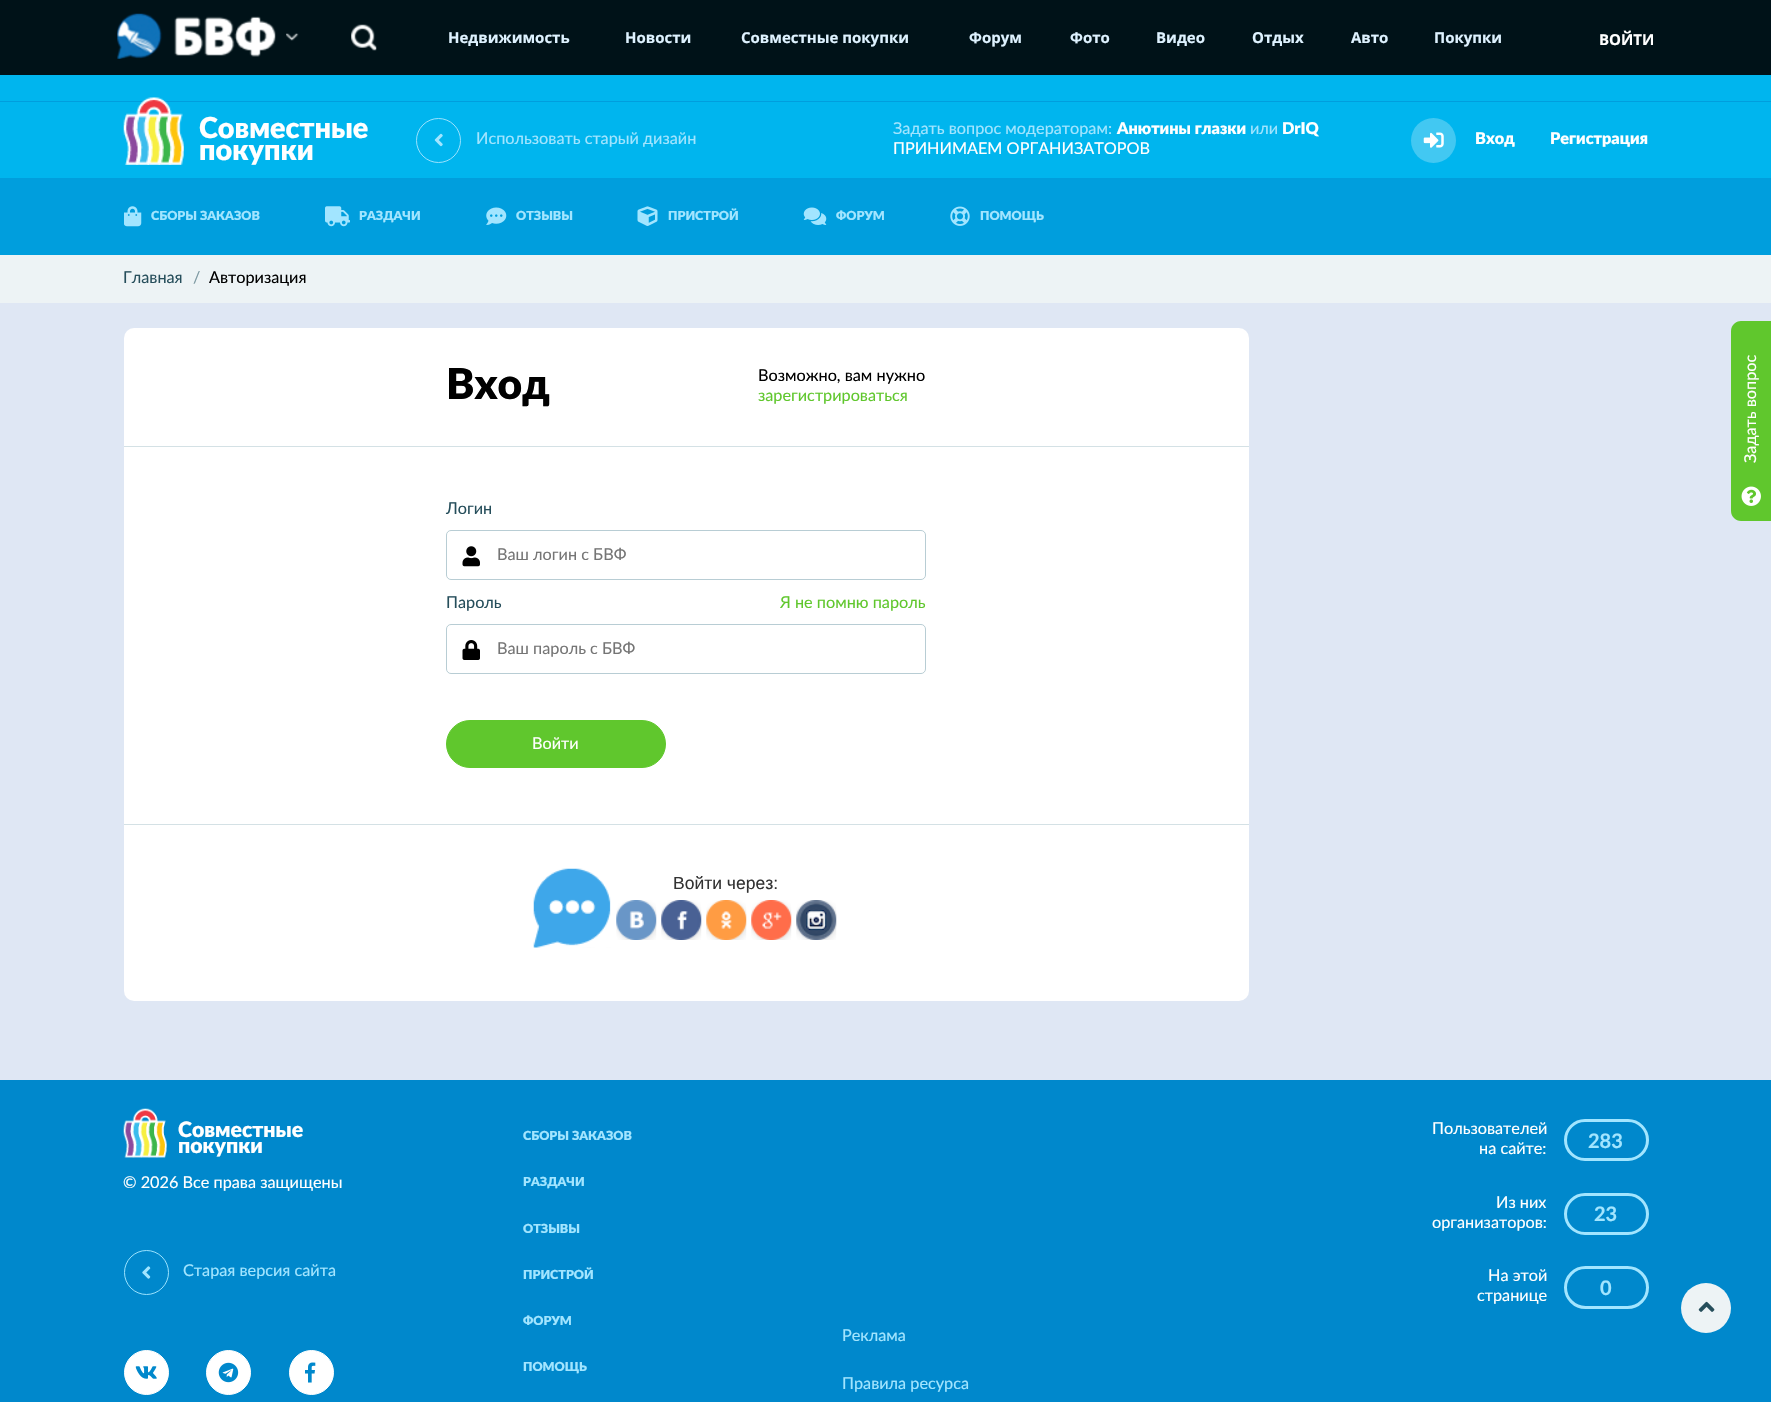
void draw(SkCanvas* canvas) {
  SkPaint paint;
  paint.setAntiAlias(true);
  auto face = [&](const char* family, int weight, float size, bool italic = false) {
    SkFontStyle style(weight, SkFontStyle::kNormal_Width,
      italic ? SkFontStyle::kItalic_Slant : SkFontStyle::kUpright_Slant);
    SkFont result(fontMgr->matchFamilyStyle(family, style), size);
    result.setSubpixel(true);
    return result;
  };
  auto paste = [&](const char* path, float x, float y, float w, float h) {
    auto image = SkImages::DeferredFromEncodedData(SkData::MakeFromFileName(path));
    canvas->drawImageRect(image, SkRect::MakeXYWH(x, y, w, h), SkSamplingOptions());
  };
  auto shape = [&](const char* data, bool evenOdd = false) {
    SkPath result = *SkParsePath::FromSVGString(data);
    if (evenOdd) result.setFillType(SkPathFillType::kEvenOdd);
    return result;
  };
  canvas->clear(0xff00b5ee);
  paint.setColor(0xff001218);
  canvas->drawRect(SkRect::MakeXYWH(0, 0, 1771, 75), paint);
  paste("img/1.png", 117, 13, 159, 46);
  paste("img/2.png", 286, 33, 13, 8);
  paste("img/3.png", 351, 24, 26, 27);
  paint.setColor(0xff009edd);
  canvas->drawRect(SkRect::MakeXYWH(0, 101, 1771, 1), paint);
  paste("img/4.png", 123, 97, 61, 68);
  paint.setStroke(true);
  paint.setStrokeWidth(1);
  paint.setColor(0xff9ae2fe);
  canvas->drawCircle(438.5f, 140.5f, 22, paint);
  paste("img/5.png", 434, 133, 9, 14);
  paint.setStroke(false);
  paint.setColor(0xff42c8f2);
  canvas->drawCircle(1433.5f, 140.5f, 22.5f, paint);
  paste("img/6.png", 1423, 132, 21, 16);
  paint.setColor(0xff009edd);
  canvas->drawRect(SkRect::MakeXYWH(0, 178, 1771, 77), paint);
  paste("img/7.png", 124, 206, 18, 21);
  paste("img/8.png", 325, 206, 25, 21);
  paste("img/9.png", 486, 207, 21, 18);
  paste("img/10.png", 637, 206, 21, 20);
  paste("img/11.png", 803, 207, 24, 18);
  paste("img/12.png", 950, 206, 20, 20);
  paint.setColor(0xffedf3f5);
  canvas->drawRect(SkRect::MakeXYWH(0, 255, 1771, 48), paint);
  paint.setColor(0xffdfe7f4);
  canvas->drawRect(SkRect::MakeXYWH(0, 303, 1771, 777), paint);
  paint.setColor(0xffffffff);
  canvas->drawRoundRect(SkRect::MakeXYWH(124, 328, 1125, 673), 10, 10, paint);
  paint.setColor(0xffd4e1e5);
  canvas->drawRect(SkRect::MakeXYWH(124, 446, 1125, 1), paint);
  paint.setStroke(true);
  paint.setColor(0xffb8cdd4);
  canvas->drawRoundRect(SkRect::MakeXYWH(446.5f, 530.5f, 479, 49), 4.5f, 4.5f, paint);
  paste("img/13.png", 462, 546, 18, 21);
  canvas->drawRoundRect(SkRect::MakeXYWH(446.5f, 624.5f, 479, 49), 4.5f, 4.5f, paint);
  paste("img/14.png", 462, 640, 18, 20);
  paint.setStroke(false);
  paint.setColor(0xff60c72d);
  canvas->drawRoundRect(SkRect::MakeXYWH(446.5f, 720.5f, 219, 47), 23.5f, 23.5f, paint);
  paint.setStroke(true);
  canvas->drawRoundRect(SkRect::MakeXYWH(446.5f, 720.5f, 219, 47), 23.5f, 23.5f, paint);
  paint.setStroke(false);
  paint.setColor(0xffd4e1e5);
  canvas->drawRect(SkRect::MakeXYWH(124, 824, 1125, 1), paint);
  paste("img/15.png", 533, 868, 78, 80);
  paste("img/16.png", 616, 900, 41, 40);
  paste("img/17.png", 661, 900, 41, 40);
  paste("img/18.png", 706, 900, 41, 40);
  paste("img/19.png", 751, 900, 41, 40);
  paste("img/20.png", 796, 900, 41, 40);
  paint.setColor(0xff60c72d);
  canvas->drawPath(shape("M1741 321H1771V521H1741C1735.5 521 1731 516.5 1731 511V331C1731 325.5 1735.5 321 1741 321Z"), paint);
  paste("img/21.png", 1741, 486, 20, 20);
  paint.setColor(0xff0088cc);
  canvas->drawRect(SkRect::MakeXYWH(0, 1080, 1771, 322), paint);
  paste("img/22.png", 123, 1108, 44, 50);
  paint.setStroke(true);
  paint.setColor(0xff9ae2fe);
  canvas->drawCircle(146.5f, 1272.5f, 22, paint);
  paste("img/23.png", 142, 1266, 9, 13);
  paint.setStroke(false);
  paint.setColor(0xffffffff);
  canvas->drawCircle(146.5f, 1372.5f, 22, paint);
  paint.setStroke(true);
  canvas->drawCircle(146.5f, 1372.5f, 22, paint);
  paste("img/24.png", 135, 1366, 22, 13);
  paint.setStroke(false);
  canvas->drawCircle(228.5f, 1372.5f, 22, paint);
  paint.setStroke(true);
  canvas->drawCircle(228.5f, 1372.5f, 22, paint);
  paste("img/25.png", 218, 1362, 21, 21);
  paint.setStroke(false);
  canvas->drawCircle(311.5f, 1372.5f, 22, paint);
  paint.setStroke(true);
  canvas->drawCircle(311.5f, 1372.5f, 22, paint);
  paste("img/26.png", 305, 1362, 11, 21);
  paint.setStrokeWidth(3);
  paint.setColor(0xffa2e5ff);
  canvas->drawRoundRect(SkRect::MakeXYWH(1565.5f, 1120.5f, 82, 39), 19.5f, 19.5f, paint);
  canvas->drawRoundRect(SkRect::MakeXYWH(1565.5f, 1194.5f, 82, 39), 19.5f, 19.5f, paint);
  canvas->drawRoundRect(SkRect::MakeXYWH(1565.5f, 1267.5f, 82, 40), 20, 20, paint);
  paint.setStroke(false);
  paint.setColor(0xffedf3f5);
  canvas->drawCircle(1706, 1308, 25, paint);
  paste("img/27.png", 1698, 1301, 17, 11);
  auto f0 = face("Open Sans", 700, 15);
  paint.setColor(0xffdef2ff);
  {
    const struct { const char* s; float x, y; } items[] = {
      {"Недвижимость", 448, 43},
      {"Новости", 625, 43},
      {"Совместные покупки", 741, 43},
      {"Форум", 969, 43},
      {"Фото", 1070, 43},
      {"Видео", 1156, 43},
      {"Отдых", 1252, 43},
      {"Авто", 1351, 43},
      {"Покупки", 1434, 43},
    };
    for (auto [s, x, y] : items) {
      canvas->drawString(s, x, y, f0, paint);
    }
  }
  paint.setColor(0xffffffff);
  canvas->drawString("ВОЙТИ", 1599, 45, f0, paint);
  auto f1 = face("Lato", 900, 28.75f);
  canvas->drawString("Совместные", 199, 138, f1, paint);
  canvas->drawString("покупки", 199, 160, f1, paint);
  auto f2 = face("Lato", 400, 16.25f);
  paint.setColor(0xffa2e5ff);
  canvas->drawString("Использовать старый дизайн", 476, 144, f2, paint);
  canvas->drawString("Задать вопрос модераторам:", 893, 134, f2, paint);
  auto f3 = face("Lato", 900, 16.25f);
  paint.setColor(0xffffffff);
  canvas->drawString("Анютины глазки", 1117, 134, f3, paint);
  paint.setColor(0xffa2e5ff);
  canvas->drawString("или", 1250, 134, f2, paint);
  paint.setColor(0xffffffff);
  canvas->drawString("DrIQ", 1282, 134, f3, paint);
  canvas->drawString("ПРИНИМАЕМ ОРГАНИЗАТОРОВ", 893, 154, f2, paint);
  canvas->drawString("Вход", 1475, 144, f3, paint);
  canvas->drawString("Регистрация", 1550, 144, f3, paint);
  auto f4 = face("Lato", 900, 12.5f);
  paint.setColor(0xffa2e5ff);
  {
    const struct { const char* s; float x, y; } items[] = {
      {"СБОРЫ ЗАКАЗОВ", 151, 220},
      {"РАЗДАЧИ", 359, 220},
      {"ОТЗЫВЫ", 516, 220},
      {"ПРИСТРОЙ", 668, 220},
      {"ФОРУМ", 836, 220},
      {"ПОМОЩЬ", 980, 220},
    };
    for (auto [s, x, y] : items) {
      canvas->drawString(s, x, y, f4, paint);
    }
  }
  paint.setColor(0xff264e5b);
  canvas->drawString("Главная", 123, 283, f2, paint);
  paint.setColor(0xff7d99a2);
  canvas->drawString("/", 193, 283, f2, paint);
  paint.setColor(0xff000000);
  canvas->drawString("Авторизация", 209, 283, f2, paint);
  auto f5 = face("Lato", 900, 42.5f);
  canvas->drawString("Вход", 446, 399, f5, paint);
  canvas->drawString("Возможно, вам нужно", 758, 381, f2, paint);
  paint.setColor(0xff60c72d);
  canvas->drawString("зарегистрироваться", 758, 401, f2, paint);
  paint.setColor(0xff264e5b);
  canvas->drawString("Логин", 446, 514, f2, paint);
  paint.setColor(0xff757575);
  canvas->drawString("Ваш логин с БВФ", 497, 560, f2, paint);
  paint.setColor(0xff264e5b);
  canvas->drawString("Пароль", 446, 608, f2, paint);
  paint.setColor(0xff60c72d);
  canvas->drawString("Я не помню пароль", 780, 608, f2, paint);
  paint.setColor(0xff757575);
  canvas->drawString("Ваш пароль с БВФ", 497, 654, f2, paint);
  paint.setColor(0xffffffff);
  canvas->drawString("Войти", 532, 749, f2, paint);
  auto f6 = face("Liberation Sans", 400, 17.5f);
  paint.setColor(0xff333333);
  canvas->drawString("Войти через:", 673, 889, f6, paint);
  paint.setColor(0xffffffff);
  canvas->save();
  canvas->rotate(-90, 1756, 463);
  canvas->drawString("Задать вопрос", 1756, 463, f2, paint);
  canvas->restore();
  auto f7 = face("Lato", 900, 21.25f);
  canvas->drawString("Совместные", 178, 1137, f7, paint);
  canvas->drawString("покупки", 178, 1153, f7, paint);
  canvas->drawString("© 2026 Все права защищены", 123, 1188, f2, paint);
  paint.setColor(0xffa2e5ff);
  canvas->drawString("Старая версия сайта", 183, 1276, f2, paint);
  {
    const struct { const char* s; float x, y; } items[] = {
      {"СБОРЫ ЗАКАЗОВ", 523, 1140},
      {"РАЗДАЧИ", 523, 1186},
      {"ОТЗЫВЫ", 523, 1233},
      {"ПРИСТРОЙ", 523, 1279},
      {"ФОРУМ", 523, 1325},
      {"ПОМОЩЬ", 523, 1371},
    };
    for (auto [s, x, y] : items) {
      canvas->drawString(s, x, y, f4, paint);
    }
  }
  canvas->drawString("Реклама", 842, 1341, f2, paint);
  canvas->drawString("Правила ресурса", 842, 1389, f2, paint);
  paint.setColor(0xffffffff);
  canvas->drawString("Пользователей", 1432, 1134, f2, paint);
  canvas->drawString("на сайте:", 1479, 1154, f2, paint);
  auto f8 = face("Lato", 700, 20);
  paint.setColor(0xffa2e5ff);
  canvas->drawString("283", 1588, 1148, f8, paint);
  paint.setColor(0xffffffff);
  canvas->drawString("Из них", 1496, 1208, f2, paint);
  canvas->drawString("организаторов:", 1432, 1228, f2, paint);
  paint.setColor(0xffa2e5ff);
  canvas->drawString("23", 1594, 1221, f8, paint);
  paint.setColor(0xffffffff);
  canvas->drawString("На этой", 1488, 1281, f2, paint);
  canvas->drawString("странице", 1477, 1301, f2, paint);
  paint.setColor(0xffa2e5ff);
  canvas->drawString("0", 1600, 1295, f8, paint);
}
